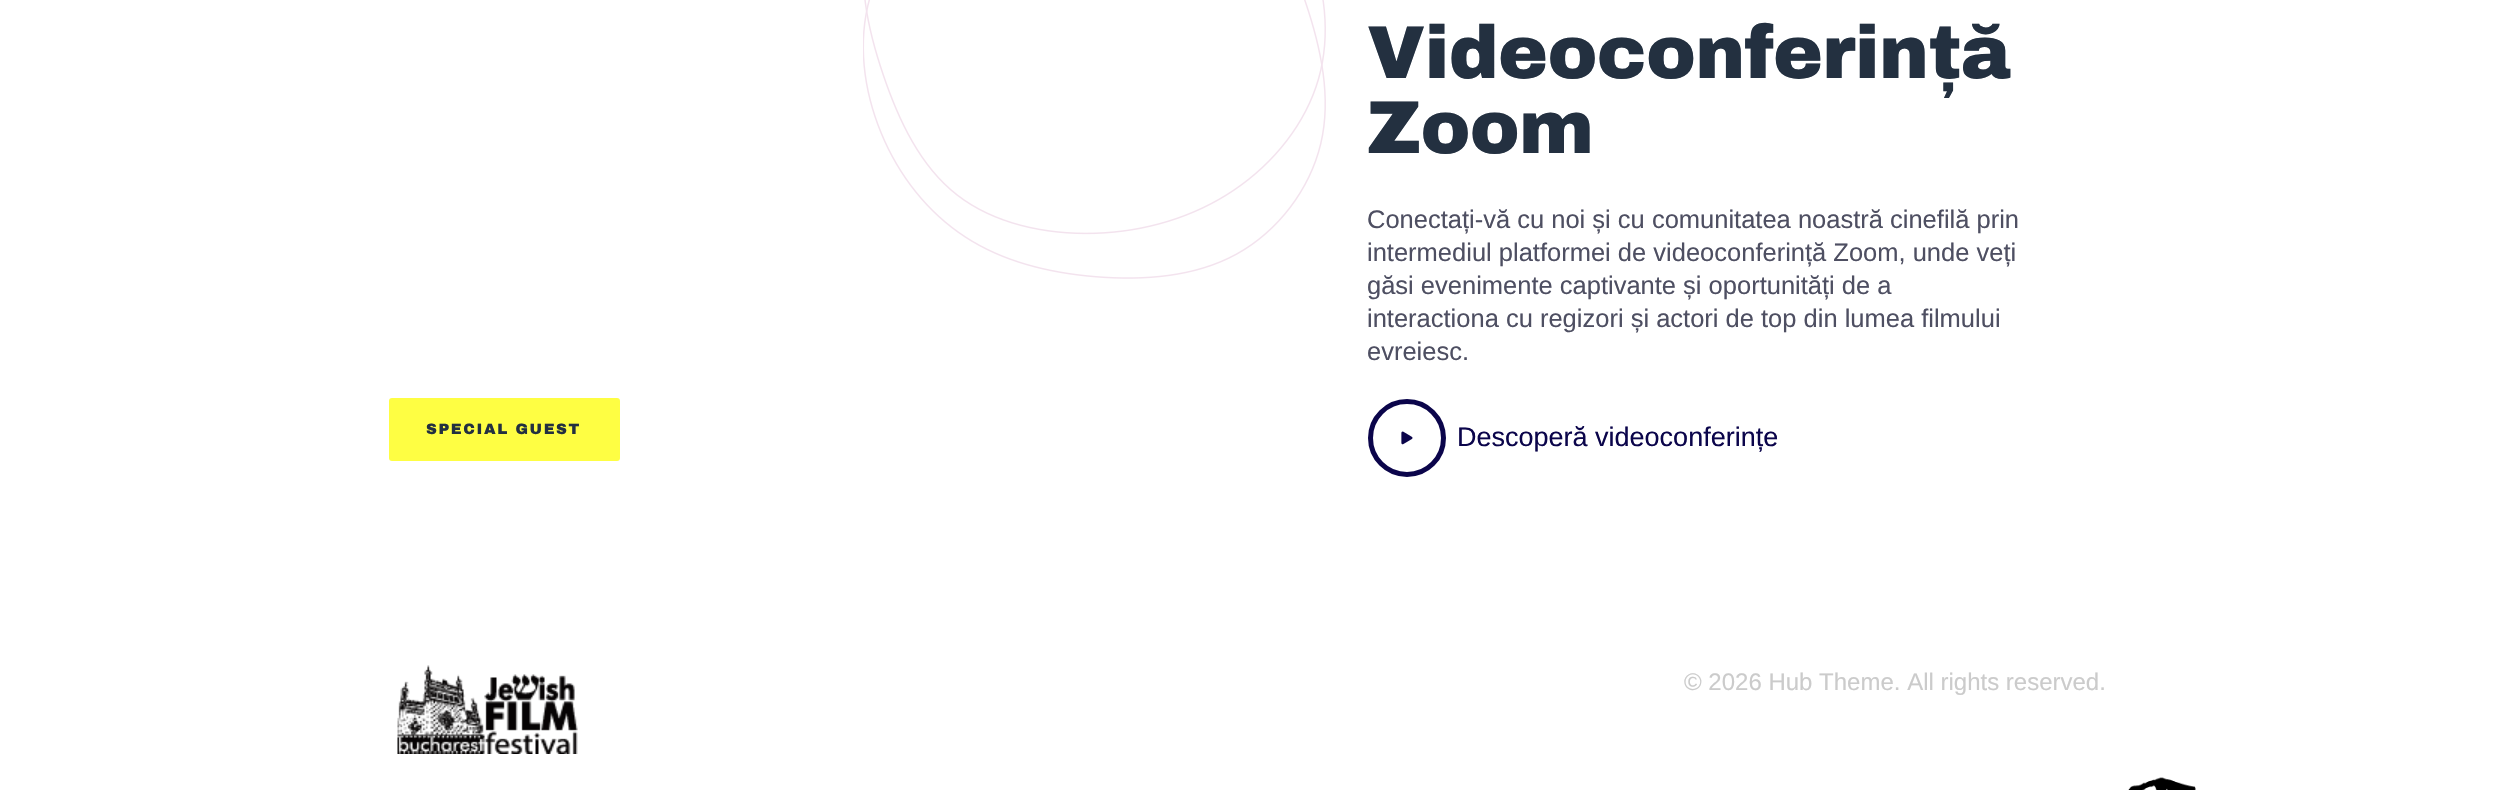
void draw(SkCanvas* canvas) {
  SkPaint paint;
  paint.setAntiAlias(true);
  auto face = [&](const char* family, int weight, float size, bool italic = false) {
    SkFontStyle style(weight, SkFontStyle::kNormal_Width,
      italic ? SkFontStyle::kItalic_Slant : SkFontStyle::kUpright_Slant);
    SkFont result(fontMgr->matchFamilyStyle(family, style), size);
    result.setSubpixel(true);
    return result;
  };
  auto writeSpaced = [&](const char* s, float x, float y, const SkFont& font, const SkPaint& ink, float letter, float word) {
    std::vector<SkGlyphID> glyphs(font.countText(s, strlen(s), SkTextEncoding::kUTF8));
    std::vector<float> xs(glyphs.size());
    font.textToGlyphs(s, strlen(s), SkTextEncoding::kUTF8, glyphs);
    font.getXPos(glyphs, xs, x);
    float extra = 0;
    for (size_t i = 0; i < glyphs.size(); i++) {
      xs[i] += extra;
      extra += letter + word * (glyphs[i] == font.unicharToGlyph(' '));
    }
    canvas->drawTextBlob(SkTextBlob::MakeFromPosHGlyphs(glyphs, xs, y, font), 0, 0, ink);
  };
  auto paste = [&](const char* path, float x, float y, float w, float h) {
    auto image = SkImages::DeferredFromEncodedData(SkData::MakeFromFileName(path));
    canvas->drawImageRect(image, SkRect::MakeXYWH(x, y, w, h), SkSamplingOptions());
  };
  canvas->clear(0xffffffff);
  paste("img/1.png", 863, 0, 463, 279);
  paint.setColor(0xfffefe43);
  canvas->drawRoundRect(SkRect::MakeXYWH(389, 398, 231, 63), 3, 3, paint);
  paint.setStroke(true);
  paint.setStrokeWidth(5);
  paint.setColor(0xff0b054b);
  canvas->drawCircle(1407, 438, 36.5f, paint);
  paste("img/2.png", 1401, 431, 12, 14);
  paste("img/3.png", 0, 630, 2501, 160);
  paste("img/4.png", 397, 665, 181, 89);
  auto f0 = face("Archivo Black", 900, 15);
  paint.setStroke(false);
  paint.setColor(0xff233040);
  writeSpaced("SPECIAL GUEST", 426, 434, f0, paint, 1.6f, 0);
  auto f1 = face("Archivo Black", 900, 75);
  writeSpaced("Videoconferință", 1367, 78, f1, paint, -0.75f, 0);
  writeSpaced("Zoom", 1367, 153, f1, paint, -0.75f, 0);
  auto f2 = face("Liberation Sans", 400, 25.5f);
  paint.setColor(0xff4e4f62);
  {
    const struct { const char* s; float x, y; } items[] = {
      {"Conectați-vă cu noi și cu comunitatea noastră cinefilă prin", 1367, 228},
      {"intermediul platformei de videoconferință Zoom, unde veți", 1367, 261},
      {"găsi evenimente captivante și oportunități de a", 1367, 294},
      {"interactiona cu regizori și actori de top din lumea filmului", 1367, 327},
      {"evreiesc.", 1367, 360},
    };
    for (auto [s, x, y] : items) {
      canvas->drawString(s, x, y, f2, paint);
    }
  }
  auto f3 = face("Liberation Sans", 400, 27);
  paint.setColor(0xff0b054b);
  canvas->drawString("Descoperă videoconferințe", 1457, 446, f3, paint);
  auto f4 = face("Liberation Sans", 400, 24);
  paint.setColor(0xffcbcbcb);
  canvas->drawString("© 2026 Hub Theme. All rights reserved.", 1684, 690, f4, paint);
}
